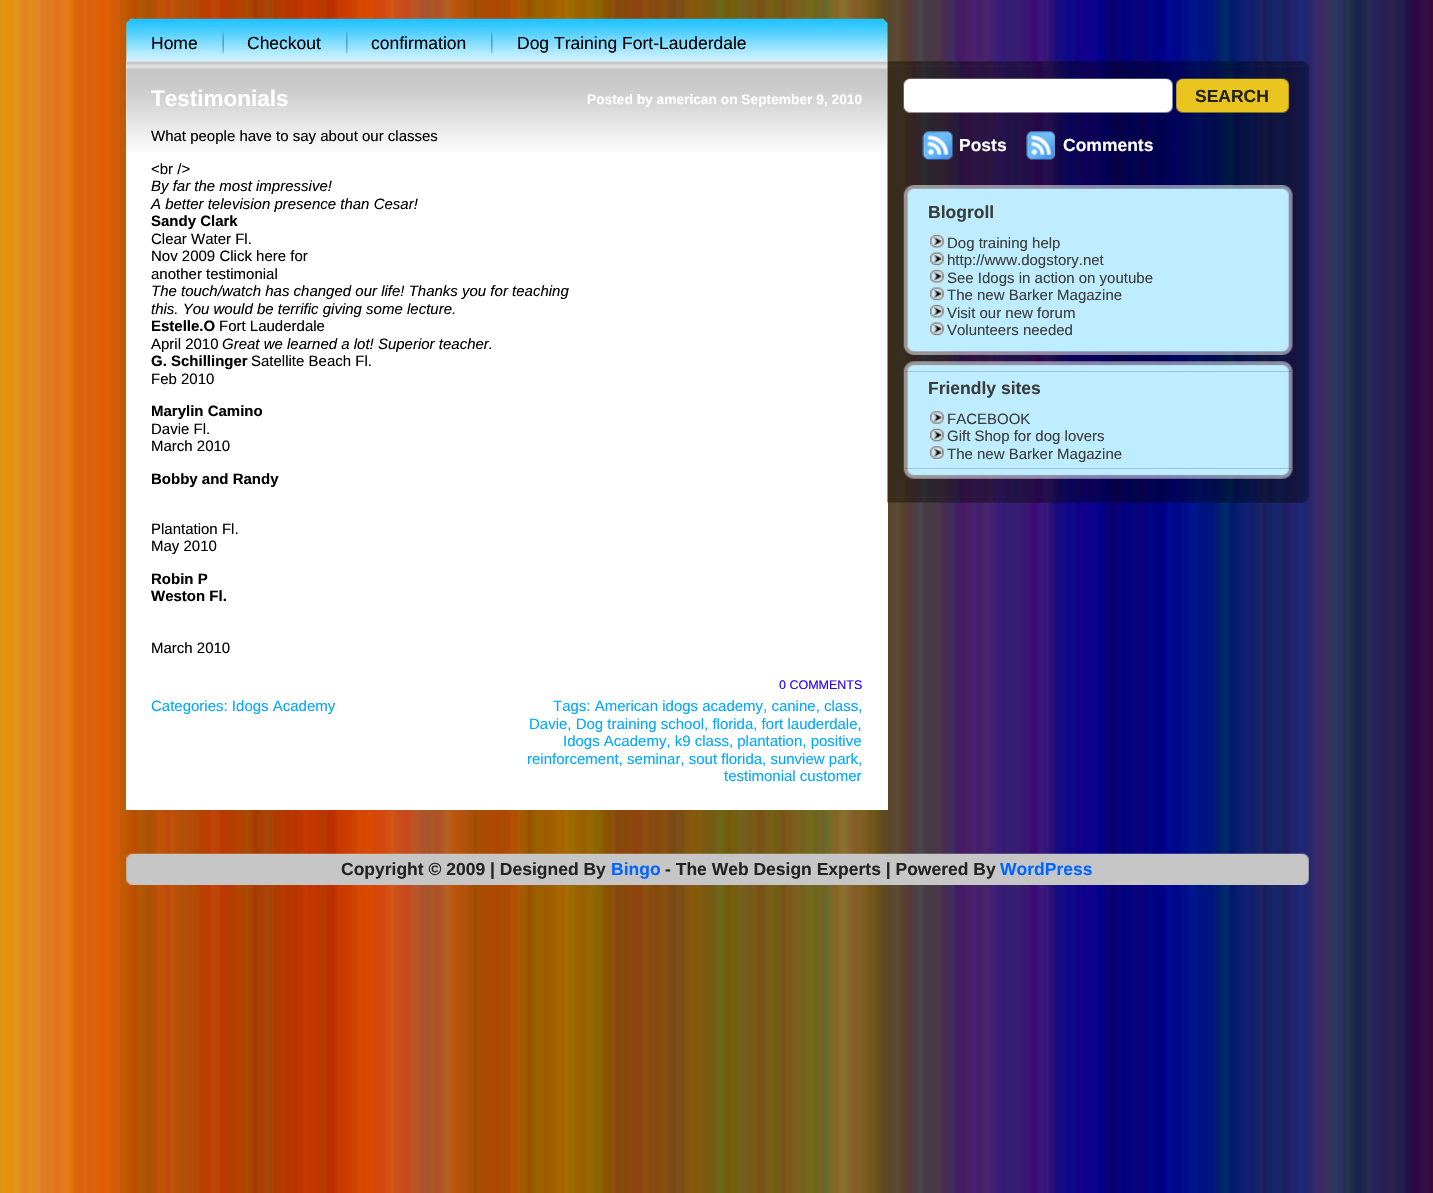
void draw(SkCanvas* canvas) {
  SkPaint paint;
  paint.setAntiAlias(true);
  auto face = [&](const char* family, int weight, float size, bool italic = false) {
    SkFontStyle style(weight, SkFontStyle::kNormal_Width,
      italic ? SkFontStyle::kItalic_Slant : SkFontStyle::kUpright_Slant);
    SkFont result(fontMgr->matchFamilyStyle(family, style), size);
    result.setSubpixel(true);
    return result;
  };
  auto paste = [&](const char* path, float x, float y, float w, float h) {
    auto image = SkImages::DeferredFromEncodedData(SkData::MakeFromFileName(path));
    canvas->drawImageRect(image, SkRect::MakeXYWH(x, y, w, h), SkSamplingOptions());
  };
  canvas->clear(0xffffffff);
  paste("img/1.png", 0, 0, 1433, 1193);
  paint.setColor(0xffffffff);
  canvas->drawRect(SkRect::MakeXYWH(126, 61, 762, 749), paint);
  paste("img/5.png", 126, 61, 762, 91);
  paste("img/7.png", 887, 61, 422, 6);
  paste("img/2.png", 126, 18, 762, 44);
  paste("img/3.png", 222, 31, 2, 23);
  paste("img/4.png", 346, 31, 2, 23);
  paste("img/4.png", 491, 31, 2, 23);
  paste("img/6.png", 887, 497, 422, 6);
  paste("img/8.png", 887, 66, 422, 432);
  paste("img/9.png", 903, 78, 270, 35);
  paste("img/10.png", 1176, 78, 113, 35);
  paste("img/11.png", 922, 131, 31, 29);
  paste("img/12.png", 1026, 131, 29, 29);
  paste("img/13.png", 903, 345, 390, 10);
  paste("img/14.png", 903, 185, 390, 10);
  paste("img/15.png", 903, 195, 390, 150);
  paste("img/16.png", 928, 233, 17, 16);
  paste("img/17.png", 928, 251, 17, 16);
  paste("img/16.png", 928, 268, 17, 16);
  paste("img/18.png", 928, 286, 17, 16);
  paste("img/16.png", 928, 303, 17, 16);
  paste("img/17.png", 928, 321, 17, 16);
  paste("img/19.png", 903, 468, 390, 11);
  paste("img/20.png", 903, 361, 390, 11);
  paste("img/21.png", 903, 371, 390, 98);
  paste("img/22.png", 928, 410, 17, 15);
  paste("img/23.png", 928, 427, 17, 16);
  paste("img/22.png", 928, 445, 17, 15);
  paste("img/24.png", 126, 853, 1183, 32);
  auto f0 = face("Liberation Sans", 400, 17.5f);
  paint.setColor(0xff000000);
  {
    const struct { const char* s; float x, y; } items[] = {
      {"Home", 151, 49},
      {"Checkout", 247, 49},
      {"confirmation", 371, 49},
      {"Dog Training Fort-Lauderdale", 517, 49},
    };
    for (auto [s, x, y] : items) {
      canvas->drawString(s, x, y, f0, paint);
    }
  }
  auto f1 = face("Liberation Sans", 700, 22.5f);
  paint.setColor(0xffffffff);
  canvas->drawString("Testimonials", 151, 106, f1, paint);
  auto f2 = face("Liberation Sans", 700, 13.75f);
  canvas->drawString("Posted by american on September 9, 2010", 587, 104, f2, paint);
  auto f3 = face("Liberation Sans", 400, 15);
  paint.setColor(0xff000000);
  canvas->drawString("What people have to say about our classes", 151, 141, f3, paint);
  canvas->drawString("<br />", 151, 174, f3, paint);
  auto f4 = face("Liberation Sans", 400, 15, true);
  canvas->drawString("By far the most impressive!", 151, 191, f4, paint);
  canvas->drawString("A better television presence than Cesar!", 151, 209, f4, paint);
  auto f5 = face("Liberation Sans", 700, 15);
  canvas->drawString("Sandy Clark", 151, 226, f5, paint);
  {
    const struct { const char* s; float x, y; } items[] = {
      {"Clear Water Fl.", 151, 244},
      {"Nov 2009 Click here for", 151, 261},
      {"another testimonial", 151, 279},
    };
    for (auto [s, x, y] : items) {
      canvas->drawString(s, x, y, f3, paint);
    }
  }
  canvas->drawString("The touch/watch has changed our life! Thanks you for teaching", 151, 296, f4, paint);
  canvas->drawString("this. You would be terrific giving some lecture.", 151, 314, f4, paint);
  canvas->drawString("Estelle.O", 151, 331, f5, paint);
  canvas->drawString("Fort Lauderdale", 219, 331, f3, paint);
  canvas->drawString("April 2010", 151, 349, f3, paint);
  canvas->drawString("Great we learned a lot! Superior teacher.", 222, 349, f4, paint);
  canvas->drawString("G. Schillinger", 151, 366, f5, paint);
  canvas->drawString("Satellite Beach Fl.", 251, 366, f3, paint);
  canvas->drawString("Feb 2010", 151, 384, f3, paint);
  canvas->drawString("Marylin Camino", 151, 416, f5, paint);
  canvas->drawString("Davie Fl.", 151, 434, f3, paint);
  canvas->drawString("March 2010", 151, 451, f3, paint);
  canvas->drawString("Bobby and Randy", 151, 484, f5, paint);
  canvas->drawString("Plantation Fl.", 151, 534, f3, paint);
  canvas->drawString("May 2010", 151, 551, f3, paint);
  canvas->drawString("Robin P", 151, 584, f5, paint);
  canvas->drawString("Weston Fl.", 151, 601, f5, paint);
  canvas->drawString("March 2010", 151, 653, f3, paint);
  auto f6 = face("Liberation Sans", 400, 12.5f);
  paint.setColor(0xff2100ff);
  canvas->drawString("0 COMMENTS", 779, 689, f6, paint);
  paint.setColor(0xff00a8ff);
  {
    const struct { const char* s; float x, y; } items[] = {
      {"Categories: Idogs Academy", 151, 711},
      {"Tags: American idogs academy, canine, class,", 553, 711},
      {"Davie, Dog training school, florida, fort lauderdale,", 529, 729},
      {"Idogs Academy, k9 class, plantation, positive", 563, 746},
      {"reinforcement, seminar, sout florida, sunview park,", 527, 764},
      {"testimonial customer", 724, 781},
    };
    for (auto [s, x, y] : items) {
      canvas->drawString(s, x, y, f3, paint);
    }
  }
  auto f7 = face("Liberation Sans", 700, 17.5f);
  paint.setColor(0xff232323);
  canvas->drawString("SEARCH", 1195, 102, f7, paint);
  paint.setColor(0xffffffff);
  canvas->drawString("Posts", 959, 151, f7, paint);
  canvas->drawString("Comments", 1063, 151, f7, paint);
  paint.setColor(0xff3c3c3c);
  canvas->drawString("Blogroll", 928, 218, f7, paint);
  {
    const struct { const char* s; float x, y; } items[] = {
      {"Dog training help", 947, 248},
      {"http://www.dogstory.net", 947, 265},
      {"See Idogs in action on youtube", 947, 283},
      {"The new Barker Magazine", 947, 300},
      {"Visit our new forum", 947, 318},
      {"Volunteers needed", 947, 335},
    };
    for (auto [s, x, y] : items) {
      canvas->drawString(s, x, y, f3, paint);
    }
  }
  canvas->drawString("Friendly sites", 928, 394, f7, paint);
  {
    const struct { const char* s; float x, y; } items[] = {
      {"FACEBOOK", 947, 424},
      {"Gift Shop for dog lovers", 947, 441},
      {"The new Barker Magazine", 947, 459},
    };
    for (auto [s, x, y] : items) {
      canvas->drawString(s, x, y, f3, paint);
    }
  }
  paint.setColor(0xff232323);
  canvas->drawString("Copyright © 2009 | Designed By", 341, 875, f7, paint);
  paint.setColor(0xff0066ff);
  canvas->drawString("Bingo", 611, 875, f7, paint);
  paint.setColor(0xff232323);
  canvas->drawString("- The Web Design Experts | Powered By", 665, 875, f7, paint);
  paint.setColor(0xff0066ff);
  canvas->drawString("WordPress", 1000, 875, f7, paint);
}
